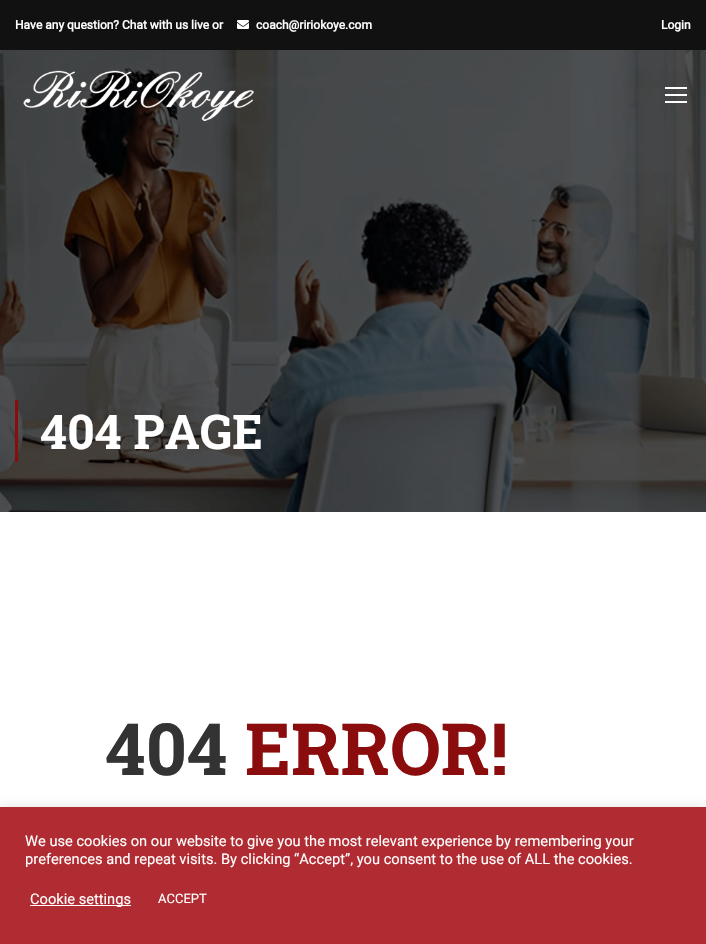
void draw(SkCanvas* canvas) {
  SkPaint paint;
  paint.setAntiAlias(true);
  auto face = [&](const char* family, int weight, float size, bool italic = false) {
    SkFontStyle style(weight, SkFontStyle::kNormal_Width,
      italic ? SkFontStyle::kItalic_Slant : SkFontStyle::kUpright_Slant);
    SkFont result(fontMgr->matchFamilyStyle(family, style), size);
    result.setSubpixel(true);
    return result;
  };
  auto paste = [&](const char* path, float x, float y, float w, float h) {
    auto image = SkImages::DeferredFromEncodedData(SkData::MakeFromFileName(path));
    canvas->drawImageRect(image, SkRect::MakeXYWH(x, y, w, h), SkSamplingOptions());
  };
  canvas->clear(0xffffffff);
  paint.setColor(0xff111111);
  canvas->drawRect(SkRect::MakeXYWH(0, 0, 706, 50), paint);
  paste("img/1.png", 237, 20, 12, 9);
  paste("img/3.png", 0, 50, 706, 462);
  paste("img/2.png", 23, 70, 231, 51);
  {
    const struct { float x, y, w, h; SkColor color; } items[] = {
      {665, 87, 22, 2, 0xffffffff},
      {665, 94, 22, 2, 0xffffffff},
      {665, 101, 22, 2, 0xffffffff},
      {15, 400, 3, 62, 0xff8b0c0c},
    };
    for (auto [x, y, w, h, color] : items) {
      paint.setColor(color);
      canvas->drawRect(SkRect::MakeXYWH(x, y, w, h), paint);
    }
  }
  paint.setColor(0x4dacabab);
  paint.setMaskFilter(SkMaskFilter::MakeBlur(kNormal_SkBlurStyle, 5));
  canvas->drawRect(SkRect::MakeXYWH(0, 806, 706, 137), paint);
  paint.setMaskFilter(nullptr);
  paint.setColor(0xffb12c32);
  canvas->drawRect(SkRect::MakeXYWH(0, 807, 706, 137), paint);
  paint.setColor(0xffffffff);
  canvas->drawRect(SkRect::MakeXYWH(30, 905, 101, 1), paint);
  auto f0 = face("Roboto", 700, 12);
  {
    const struct { const char* s; float x, y; } items[] = {
      {"Have any question? Chat with us live or", 15, 29},
      {"coach@ririokoye.com", 256, 29},
      {"Login", 661, 29},
    };
    for (auto [s, x, y] : items) {
      canvas->drawString(s, x, y, f0, paint);
    }
  }
  auto f1 = face("Roboto Slab", 700, 48);
  canvas->drawString("404 PAGE", 40, 449, f1, paint);
  auto f2 = face("Roboto Slab", 700, 72);
  paint.setColor(0xff333333);
  canvas->drawString("404", 105, 775, f2, paint);
  paint.setColor(0xff8b0c0c);
  canvas->drawString("ERROR!", 245, 775, f2, paint);
  auto f3 = face("Roboto", 400, 14.65f);
  paint.setColor(0xffffffff);
  {
    const struct { const char* s; float x, y; } items[] = {
      {"We use cookies on our website to give you the most relevant experience by remembering your", 25, 846},
      {"preferences and repeat visits. By clicking “Accept”, you consent to the use of ALL the cookies.", 25, 864},
      {"Cookie settings", 30, 904},
    };
    for (auto [s, x, y] : items) {
      canvas->drawString(s, x, y, f3, paint);
    }
  }
  auto f4 = face("Roboto", 400, 13);
  canvas->drawString("ACCEPT", 158, 903, f4, paint);
}
